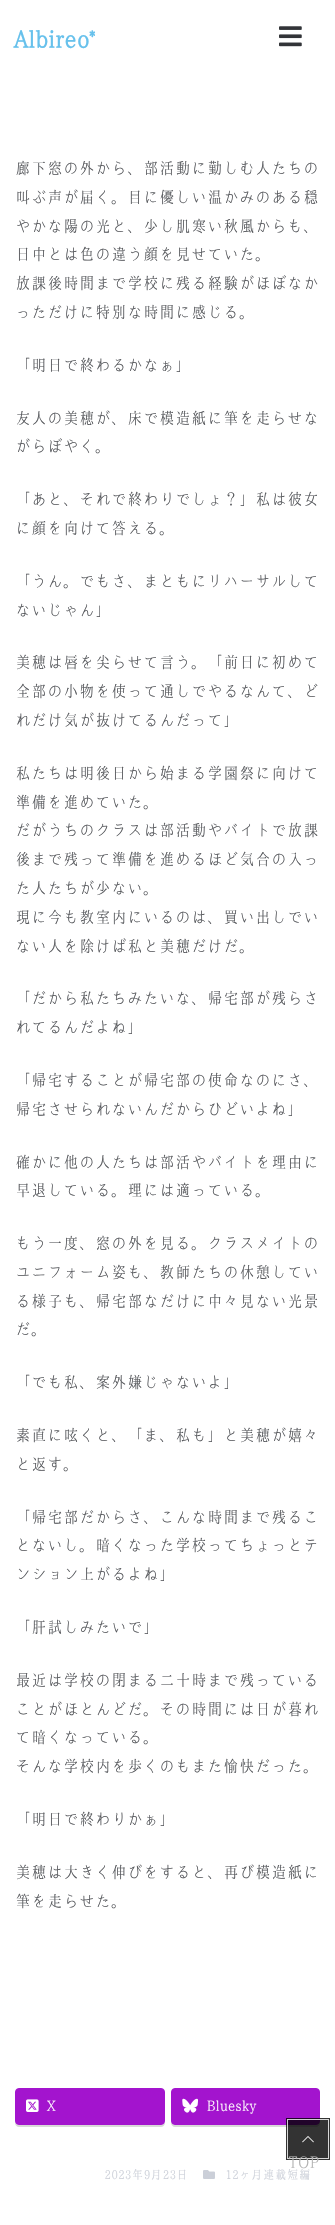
void draw(SkCanvas* canvas) {
  SkPaint paint;
  paint.setAntiAlias(true);
  auto face = [&](const char* family, int weight, float size, bool italic = false) {
    SkFontStyle style(weight, SkFontStyle::kNormal_Width,
      italic ? SkFontStyle::kItalic_Slant : SkFontStyle::kUpright_Slant);
    SkFont result(fontMgr->matchFamilyStyle(family, style), size);
    result.setSubpixel(true);
    return result;
  };
  auto paste = [&](const char* path, float x, float y, float w, float h) {
    auto image = SkImages::DeferredFromEncodedData(SkData::MakeFromFileName(path));
    canvas->drawImageRect(image, SkRect::MakeXYWH(x, y, w, h), SkSamplingOptions());
  };
  auto shape = [&](const char* data, bool evenOdd = false) {
    SkPath result = *SkParsePath::FromSVGString(data);
    if (evenOdd) result.setFillType(SkPathFillType::kEvenOdd);
    return result;
  };
  canvas->clear(0xffffffff);
  paste("img/1.png", 279, 26, 23, 21);
  paint.setColor(0xffd9d9d9);
  canvas->drawPath(shape("M15 2121V2123C15 2125 17 2127 19 2127H161C163 2127 165 2125 165 2123V2121C165 2123 163 2125 161 2125H19L16 2124Z"), paint);
  paint.setColor(0xffa314ce);
  canvas->drawRoundRect(SkRect::MakeXYWH(15.5f, 2088.5f, 149, 36), 3.5f, 3.5f, paint);
  paint.setStroke(true);
  paint.setStrokeWidth(1);
  canvas->drawRoundRect(SkRect::MakeXYWH(15.5f, 2088.5f, 149, 36), 3.5f, 3.5f, paint);
  paste("img/2.png", 26, 2099, 13, 13);
  paint.setStroke(false);
  paint.setColor(0xffd9d9d9);
  canvas->drawPath(shape("M171 2121V2123C171 2125 173 2127 175 2127H316C318 2127 320 2125 320 2123V2121L319 2124L316 2125H175C173 2125 171 2123 171 2121Z"), paint);
  paint.setColor(0xffa314ce);
  canvas->drawRoundRect(SkRect::MakeXYWH(171.5f, 2088.5f, 148, 36), 3.5f, 3.5f, paint);
  paint.setStroke(true);
  canvas->drawRoundRect(SkRect::MakeXYWH(171.5f, 2088.5f, 148, 36), 3.5f, 3.5f, paint);
  paste("img/3.png", 182, 2098, 16, 15);
  paste("img/4.png", 203, 2170, 12, 9);
  paint.setStrokeWidth(2);
  paint.setColor(0xcc000000);
  canvas->drawRect(SkRect::MakeXYWH(287, 2119, 42, 40), paint);
  paint.setStrokeWidth(1);
  paint.setColor(0xccffffff);
  canvas->drawRect(SkRect::MakeXYWH(287.5f, 2119.5f, 41, 39), paint);
  paint.setStroke(false);
  paint.setColor(0xcc000000);
  canvas->drawRect(SkRect::MakeXYWH(288, 2120, 40, 38), paint);
  paste("img/5.png", 302, 2136, 12, 7);
  auto f0 = face("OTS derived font", 700, 24);
  paint.setColor(0xff67c1ec);
  canvas->drawString("Albireo*", 12, 48, f0, paint);
  auto f1 = face("OTS derived font", 400, 16);
  paint.setColor(0xff57595d);
  {
    const struct { const char* s; float x, y; } items[] = {
      {"廊下窓の外から、部活動に勤しむ人たちの", 15, 174},
      {"叫ぶ声が届く。目に優しい温かみのある穏", 15, 203},
      {"やかな陽の光と、少し肌寒い秋風からも、", 15, 232},
      {"日中とは色の違う顔を見せていた。", 15, 260},
      {"放課後時間まで学校に残る経験がほぼなか", 15, 289},
      {"っただけに特別な時間に感じる。", 15, 318},
      {"「明日で終わるかなぁ」", 15, 371},
      {"友人の美穂が、床で模造紙に筆を走らせな", 15, 424},
      {"がらぼやく。", 15, 452},
      {"「あと、それで終わりでしょ？」私は彼女", 15, 505},
      {"に顔を向けて答える。", 15, 534},
      {"「うん。でもさ、まともにリハーサルして", 15, 587},
      {"ないじゃん」", 15, 616},
      {"美穂は唇を尖らせて言う。「前日に初めて", 15, 668},
      {"全部の小物を使って通しでやるなんて、ど", 15, 697},
      {"れだけ気が抜けてるんだって」", 15, 726},
      {"私たちは明後日から始まる学園祭に向けて", 15, 779},
      {"準備を進めていた。", 15, 808},
      {"だがうちのクラスは部活動やバイトで放課", 15, 836},
      {"後まで残って準備を進めるほど気合の入っ", 15, 865},
      {"た人たちが少ない。", 15, 894},
      {"現に今も教室内にいるのは、買い出しでい", 15, 923},
      {"ない人を除けば私と美穂だけだ。", 15, 952},
      {"「だから私たちみたいな、帰宅部が残らさ", 15, 1004},
      {"れてるんだよね」", 15, 1033},
      {"「帰宅することが帰宅部の使命なのにさ、", 15, 1086},
      {"帰宅させられないんだからひどいよね」", 15, 1115},
      {"確かに他の人たちは部活やバイトを理由に", 15, 1168},
      {"早退している。理には適っている。", 15, 1196},
      {"もう一度、窓の外を見る。クラスメイトの", 15, 1249},
      {"ユニフォーム姿も、教師たちの休憩してい", 15, 1278},
      {"る様子も、帰宅部なだけに中々見ない光景", 15, 1307},
      {"だ。", 15, 1335},
      {"「でも私、案外嫌じゃないよ」", 15, 1388},
      {"素直に呟くと、「ま、私も」と美穂が嬉々", 15, 1441},
      {"と返す。", 15, 1470},
      {"「帰宅部だからさ、こんな時間まで残るこ", 15, 1523},
      {"とないし。暗くなった学校ってちょっとテ", 15, 1551},
      {"ンション上がるよね」", 15, 1580},
      {"「肝試しみたいで」", 15, 1633},
      {"最近は学校の閉まる二十時まで残っている", 15, 1686},
      {"ことがほとんどだ。その時間には日が暮れ", 15, 1715},
      {"て暗くなっている。", 15, 1743},
      {"そんな学校内を歩くのもまた愉快だった。", 15, 1772},
      {"「明日で終わりかぁ」", 15, 1825},
      {"美穂は大きく伸びをすると、再び模造紙に", 15, 1878},
      {"筆を走らせた。", 15, 1907},
    };
    for (auto [s, x, y] : items) {
      canvas->drawString(s, x, y, f1, paint);
    }
  }
  auto f2 = face("OTS derived font", 400, 14.5f);
  paint.setColor(0xffffffff);
  canvas->drawString("X", 46, 2111, f2, paint);
  canvas->drawString("Bluesky", 206, 2111, f2, paint);
  auto f3 = face("OTS derived font", 400, 12);
  paint.setColor(0xffcbcfd8);
  canvas->drawString("2023年9月23日", 104, 2179, f3, paint);
  canvas->drawString("12ヶ月連載短編", 225, 2179, f3, paint);
  paint.setColor(0xffb2b2b2);
  canvas->drawString("TOP", 288, 2168, f1, paint);
}
